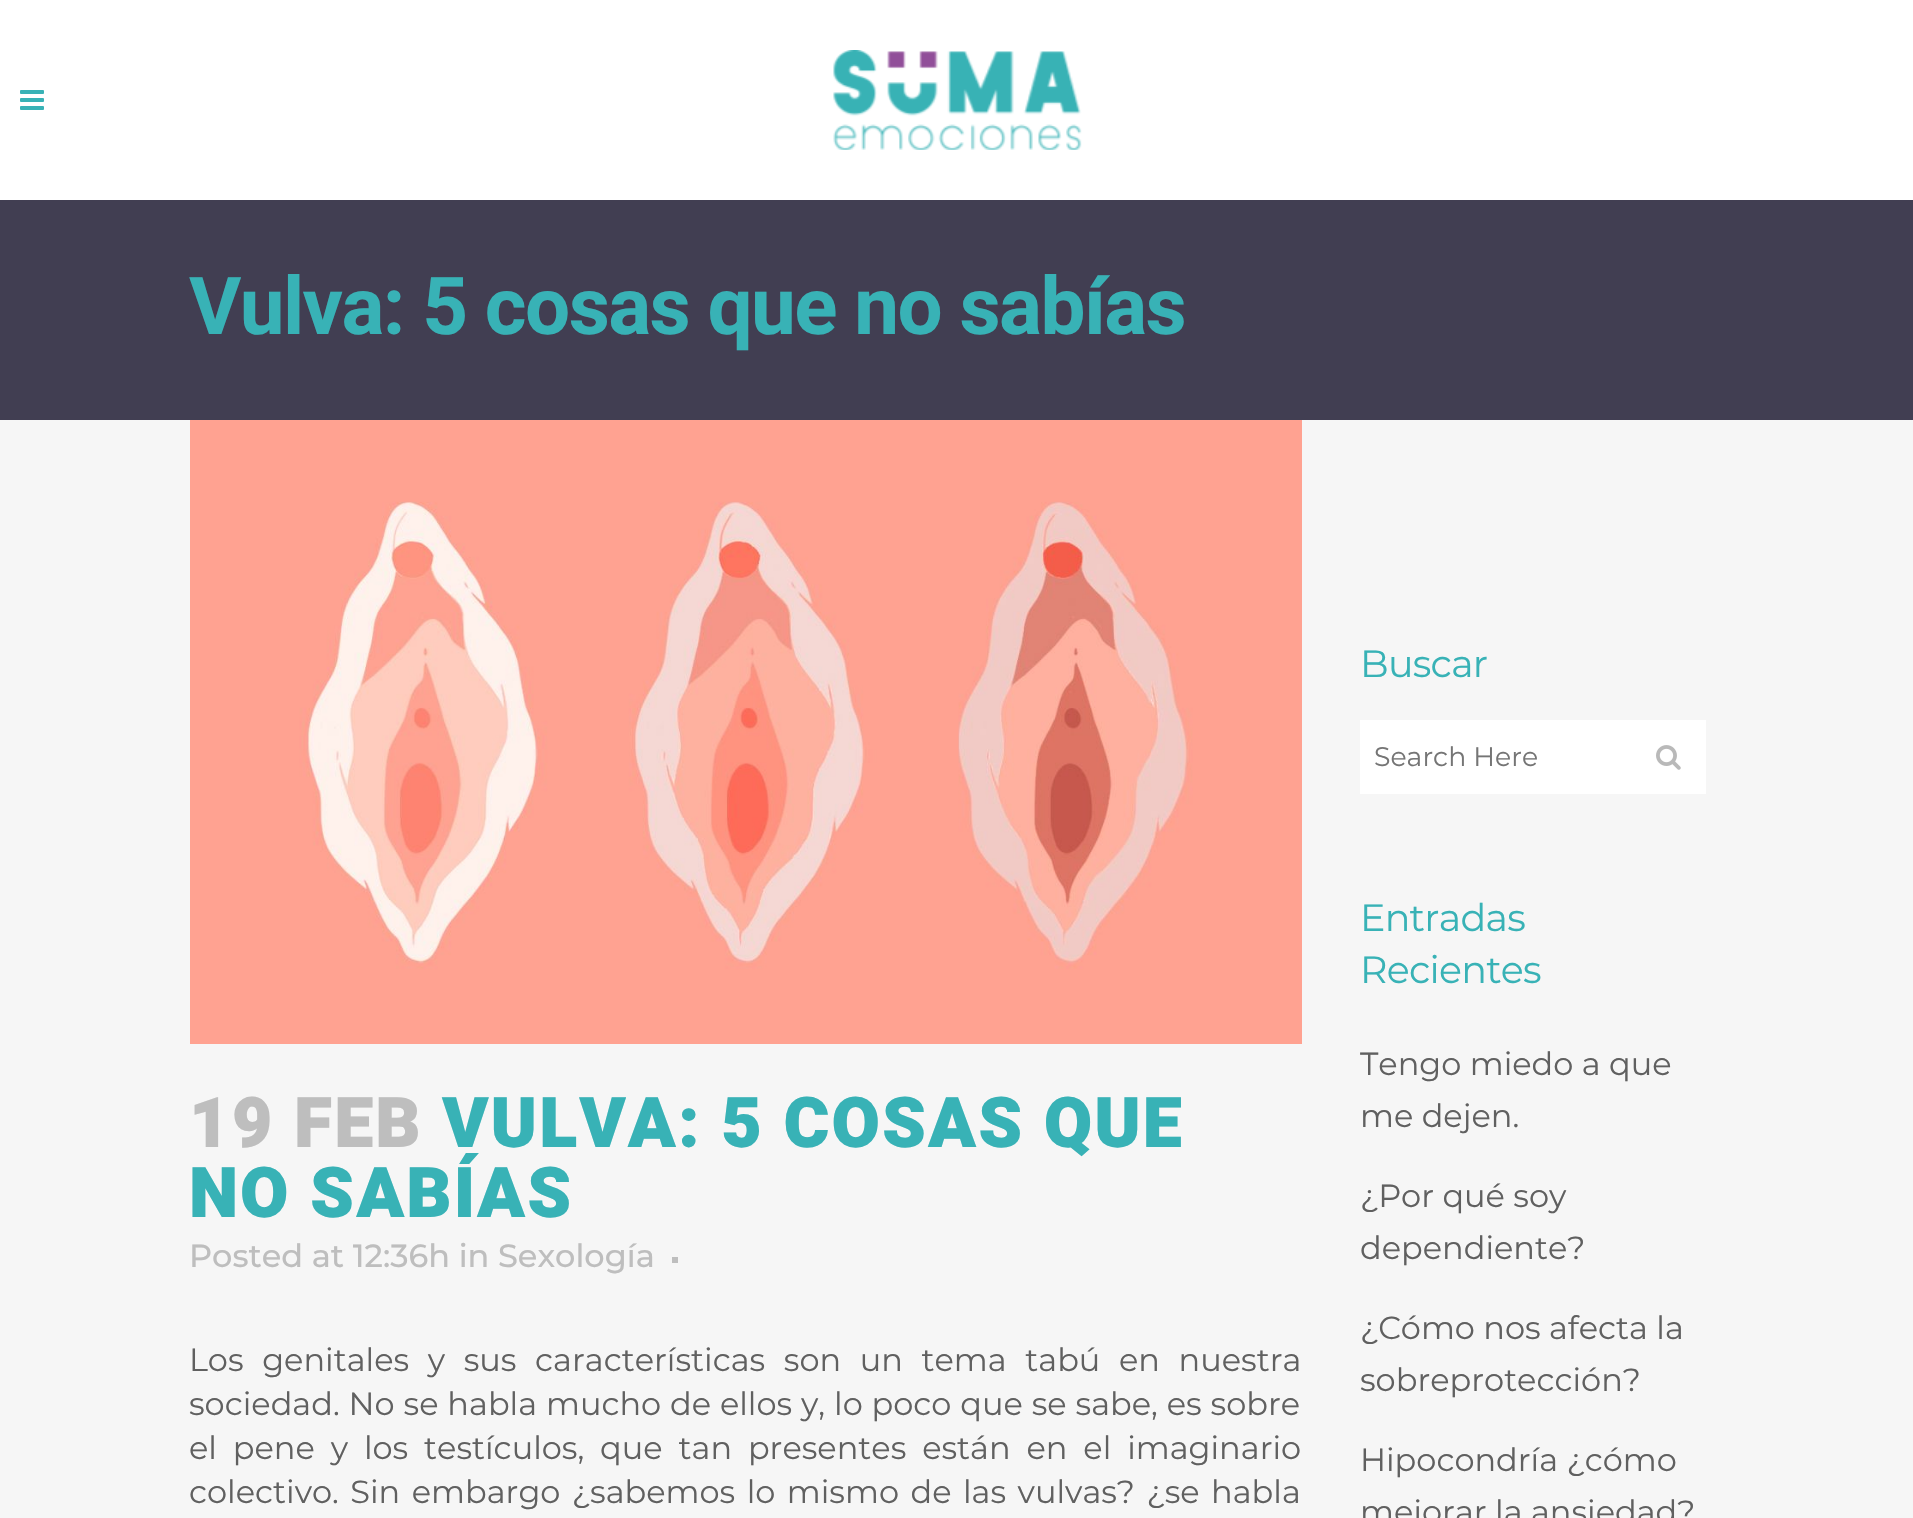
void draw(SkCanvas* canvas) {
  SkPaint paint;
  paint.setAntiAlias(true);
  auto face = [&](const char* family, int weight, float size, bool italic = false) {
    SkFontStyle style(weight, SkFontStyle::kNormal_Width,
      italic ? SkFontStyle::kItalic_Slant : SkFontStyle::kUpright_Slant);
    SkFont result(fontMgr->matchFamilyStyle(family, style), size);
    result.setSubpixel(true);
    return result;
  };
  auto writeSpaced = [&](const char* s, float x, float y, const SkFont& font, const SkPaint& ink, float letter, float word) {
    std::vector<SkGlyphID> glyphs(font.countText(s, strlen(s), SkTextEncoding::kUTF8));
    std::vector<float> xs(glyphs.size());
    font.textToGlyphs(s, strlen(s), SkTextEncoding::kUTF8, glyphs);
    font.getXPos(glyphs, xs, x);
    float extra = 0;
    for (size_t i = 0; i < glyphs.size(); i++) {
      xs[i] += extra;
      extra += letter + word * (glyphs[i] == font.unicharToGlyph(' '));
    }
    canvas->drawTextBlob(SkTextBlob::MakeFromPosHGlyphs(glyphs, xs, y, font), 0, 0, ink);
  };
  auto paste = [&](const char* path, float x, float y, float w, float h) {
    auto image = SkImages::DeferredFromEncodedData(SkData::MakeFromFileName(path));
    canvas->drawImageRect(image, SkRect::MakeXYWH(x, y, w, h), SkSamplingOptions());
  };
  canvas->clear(0xfff6f6f6);
  paint.setColor(0xffffffff);
  canvas->drawRect(SkRect::MakeXYWH(0, 0, 1913, 200), paint);
  paste("img/1.png", 20, 90, 24, 20);
  paste("img/2.png", 833, 50, 249, 100);
  paint.setColor(0xff413e52);
  canvas->drawRect(SkRect::MakeXYWH(0, 200, 1913, 220), paint);
  paste("img/3.png", 190, 420, 1112, 624);
  paint.setColor(0xffbebebe);
  canvas->drawRect(SkRect::MakeXYWH(672, 1257, 6, 6), paint);
  paint.setColor(0xffffffff);
  canvas->drawRect(SkRect::MakeXYWH(1360, 720, 346, 74), paint);
  paste("img/4.png", 1656, 745, 25, 25);
  auto f0 = face("Heebo", 700, 80);
  paint.setColor(0xff38b2b6);
  writeSpaced("Vulva: 5 cosas que no sabías", 189, 334, f0, paint, -1.6f, 0);
  auto f1 = face("Heebo", 900, 70);
  paint.setColor(0xffbebebe);
  writeSpaced("19 FEB", 189, 1147, f1, paint, 2, 0);
  paint.setColor(0xff38b2b6);
  writeSpaced("VULVA: 5 COSAS QUE", 442, 1147, f1, paint, 2, 0);
  writeSpaced("NO SABÍAS", 189, 1217, f1, paint, 2, 0);
  auto f2 = face("Montserrat", 500, 32);
  paint.setColor(0xffbebebe);
  canvas->drawString("Posted at 12:36h in Sexología", 189, 1267, f2, paint);
  auto f3 = face("Montserrat", 400, 32);
  paint.setColor(0xff606060);
  writeSpaced("Los genitales y sus características son un tema tabú en nuestra", 189, 1371, f3, paint, 0, 10.25f);
  writeSpaced("sociedad. No se habla mucho de ellos y, lo poco que se sabe, es sobre", 189, 1415, f3, paint, 0, 0.5f);
  writeSpaced("el pene y los testículos, que tan presentes están en el imaginario", 189, 1459, f3, paint, 0, 7.5f);
  writeSpaced("colectivo. Sin embargo ¿sabemos lo mismo de las vulvas? ¿se habla", 189, 1503, f3, paint, 0, 3.1f);
  auto f4 = face("Montserrat", 400, 38);
  paint.setColor(0xff38b2b6);
  writeSpaced("Buscar", 1360, 677, f4, paint, -0.75f, 0);
  auto f5 = face("Montserrat", 400, 26.75f);
  paint.setColor(0xff757575);
  canvas->drawString("Search Here", 1374, 766, f5, paint);
  paint.setColor(0xff38b2b6);
  writeSpaced("Entradas", 1360, 931, f4, paint, -0.75f, 0);
  writeSpaced("Recientes", 1360, 983, f4, paint, -0.75f, 0);
  paint.setColor(0xff606060);
  {
    const struct { const char* s; float x, y; } items[] = {
      {"Tengo miedo a que", 1360, 1075},
      {"me dejen.", 1360, 1127},
      {"¿Por qué soy", 1360, 1207},
      {"dependiente?", 1360, 1259},
      {"¿Cómo nos afecta la", 1360, 1339},
      {"sobreprotección?", 1360, 1391},
      {"Hipocondría ¿cómo", 1360, 1471},
      {"mejorar la ansiedad?", 1360, 1523},
    };
    for (auto [s, x, y] : items) {
      canvas->drawString(s, x, y, f3, paint);
    }
  }
}
